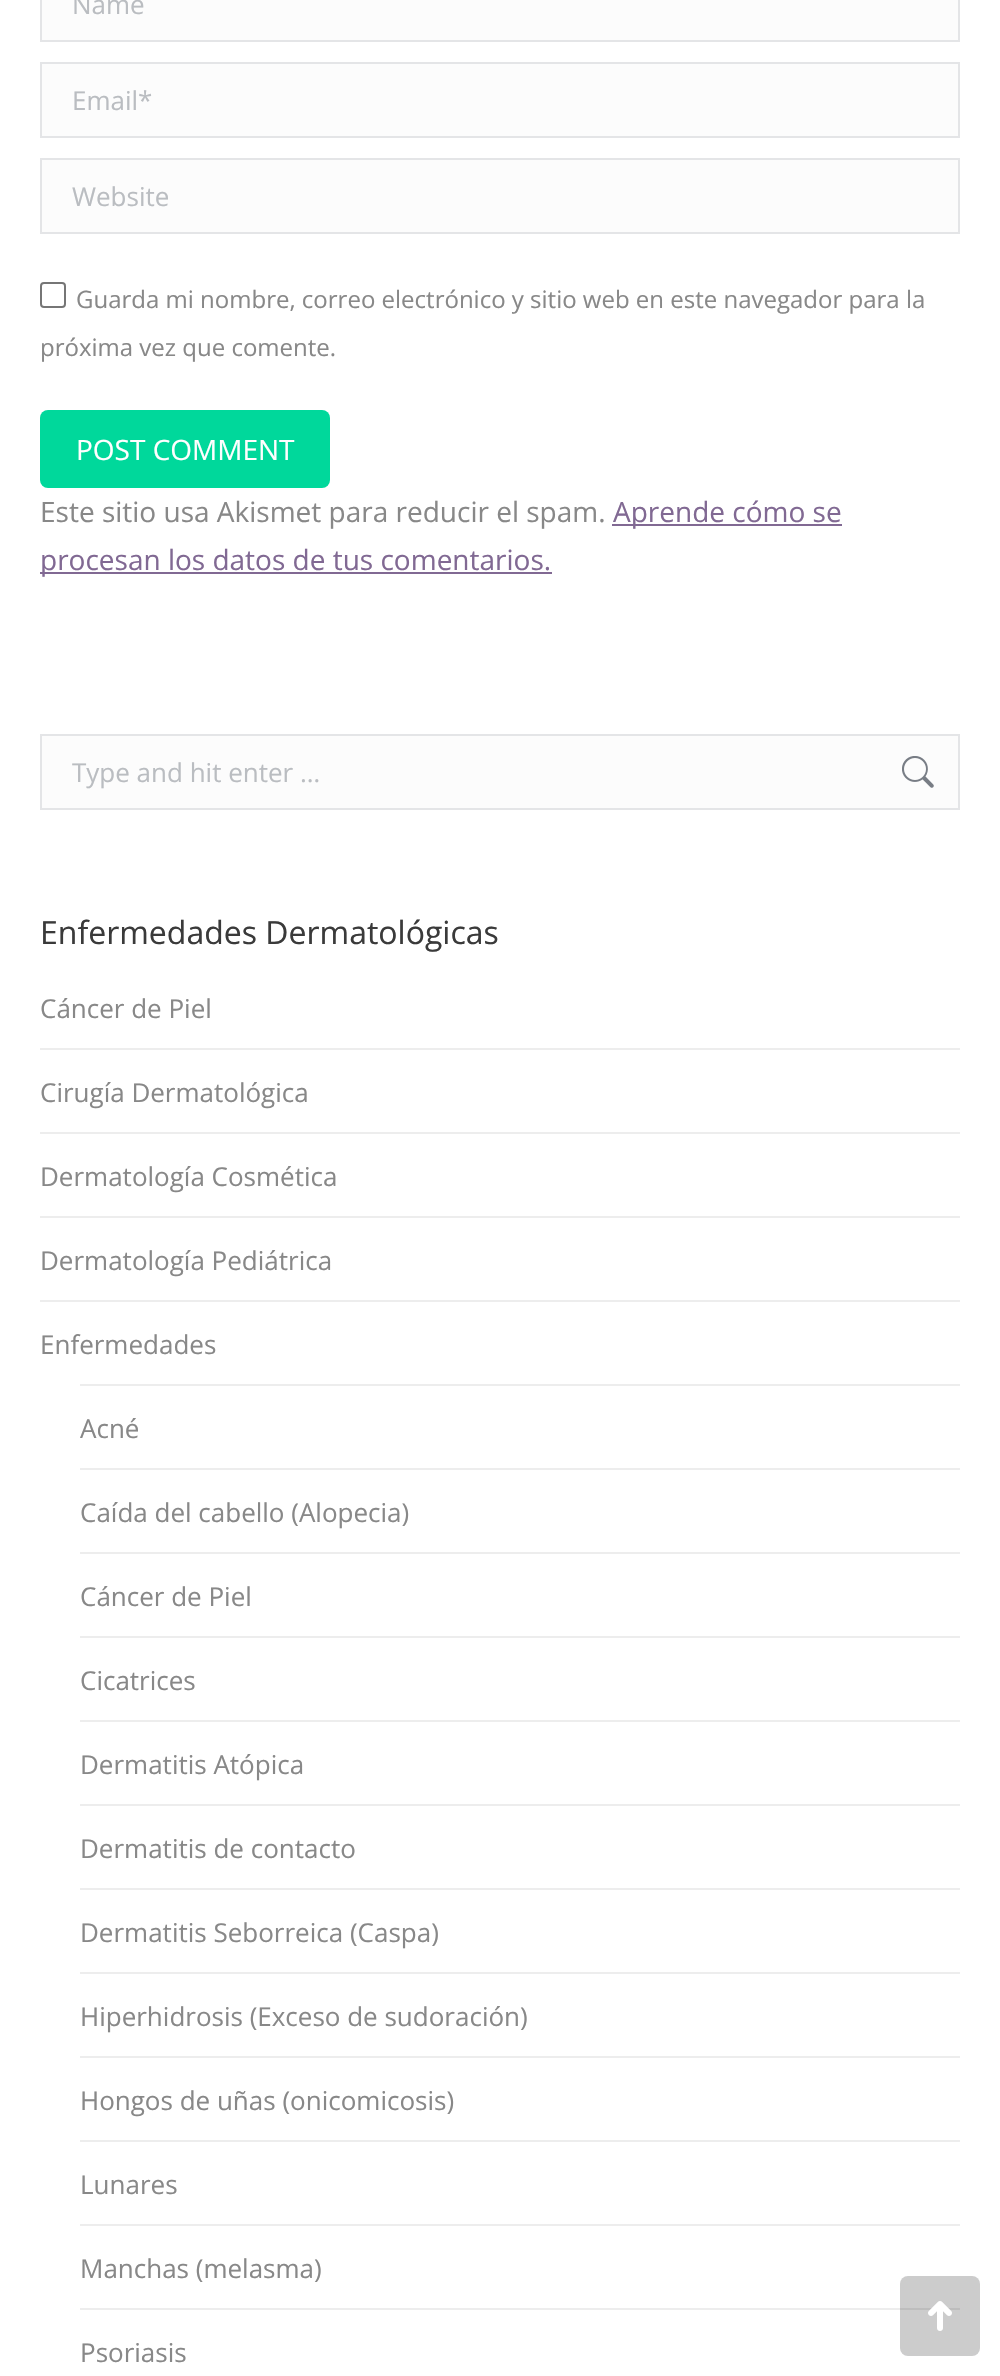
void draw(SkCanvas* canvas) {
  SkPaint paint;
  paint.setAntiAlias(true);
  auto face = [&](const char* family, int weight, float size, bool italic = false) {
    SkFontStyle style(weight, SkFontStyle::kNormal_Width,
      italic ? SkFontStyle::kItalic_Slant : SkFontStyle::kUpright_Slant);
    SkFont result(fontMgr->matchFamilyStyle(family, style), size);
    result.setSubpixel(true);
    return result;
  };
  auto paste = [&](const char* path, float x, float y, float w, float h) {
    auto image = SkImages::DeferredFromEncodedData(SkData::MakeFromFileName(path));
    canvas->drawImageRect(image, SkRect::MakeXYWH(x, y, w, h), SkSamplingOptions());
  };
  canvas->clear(0xffffffff);
  paint.setColor(0xfffcfcfc);
  canvas->drawRect(SkRect::MakeXYWH(41, -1, 918, 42), paint);
  paint.setStroke(true);
  paint.setStrokeWidth(2);
  paint.setColor(0xffe4e5e7);
  canvas->drawRect(SkRect::MakeXYWH(41, -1, 918, 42), paint);
  paint.setStroke(false);
  paint.setColor(0xfffcfcfc);
  canvas->drawRect(SkRect::MakeXYWH(41, 63, 918, 74), paint);
  paint.setStroke(true);
  paint.setColor(0xffe4e5e7);
  canvas->drawRect(SkRect::MakeXYWH(41, 63, 918, 74), paint);
  paint.setStroke(false);
  paint.setColor(0xfffcfcfc);
  canvas->drawRect(SkRect::MakeXYWH(41, 159, 918, 74), paint);
  paint.setStroke(true);
  paint.setColor(0xffe4e5e7);
  canvas->drawRect(SkRect::MakeXYWH(41, 159, 918, 74), paint);
  paint.setColor(0xff767676);
  canvas->drawRoundRect(SkRect::MakeXYWH(41, 283, 24, 24), 3, 3, paint);
  paint.setStroke(false);
  paint.setColor(0xff00d89b);
  canvas->drawRoundRect(SkRect::MakeXYWH(40, 410, 290, 78), 8, 8, paint);
  paint.setColor(0xff816993);
  canvas->drawRect(SkRect::MakeXYWH(612, 524, 230, 2), paint);
  canvas->drawRect(SkRect::MakeXYWH(40, 572, 512, 2), paint);
  paint.setColor(0xfffcfcfc);
  canvas->drawRect(SkRect::MakeXYWH(41, 735, 918, 74), paint);
  paint.setStroke(true);
  paint.setColor(0xffe4e5e7);
  canvas->drawRect(SkRect::MakeXYWH(41, 735, 918, 74), paint);
  paste("img/1.png", 902, 756, 32, 32);
  paint.setStroke(false);
  {
    const struct { float x, y, w, h; SkColor color; } items[] = {
      {40, 1048, 920, 2, 0xffededed},
      {40, 1132, 920, 2, 0xffededed},
      {40, 1216, 920, 2, 0xffededed},
      {40, 1300, 920, 2, 0xffededed},
      {80, 1384, 880, 2, 0xffededed},
      {80, 1468, 880, 2, 0xffededed},
      {80, 1552, 880, 2, 0xffededed},
      {80, 1636, 880, 2, 0xffededed},
      {80, 1720, 880, 2, 0xffededed},
      {80, 1804, 880, 2, 0xffededed},
      {80, 1888, 880, 2, 0xffededed},
      {80, 1972, 880, 2, 0xffededed},
      {80, 2056, 880, 2, 0xffededed},
      {80, 2140, 880, 2, 0xffededed},
      {80, 2224, 880, 2, 0xffededed},
      {80, 2308, 880, 2, 0xffededed},
    };
    for (auto [x, y, w, h, color] : items) {
      paint.setColor(color);
      canvas->drawRect(SkRect::MakeXYWH(x, y, w, h), paint);
    }
  }
  paint.setColor(0x33000000);
  canvas->drawRoundRect(SkRect::MakeXYWH(900, 2276, 80, 80), 8, 8, paint);
  paste("img/2.png", 928, 2301, 24, 30);
  auto f0 = face("Open Sans", 400, 26);
  paint.setColor(0xffbabdc1);
  {
    const struct { const char* s; float x, y; } items[] = {
      {"Name", 72, 14},
      {"Email*", 72, 110},
      {"Website", 72, 206},
    };
    for (auto [s, x, y] : items) {
      canvas->drawString(s, x, y, f0, paint);
    }
  }
  auto f1 = face("Open Sans", 400, 24);
  paint.setColor(0xff888888);
  canvas->drawString("Guarda mi nombre, correo electrónico y sitio web en este navegador para la", 76, 308, f1, paint);
  canvas->drawString("próxima vez que comente.", 40, 356, f1, paint);
  auto f2 = face("Open Sans", 400, 28);
  paint.setColor(0xffffffff);
  canvas->drawString("POST COMMENT", 76, 460, f2, paint);
  paint.setColor(0xff888888);
  canvas->drawString("Este sitio usa Akismet para reducir el spam.", 40, 522, f2, paint);
  paint.setColor(0xff816993);
  canvas->drawString("Aprende cómo se", 613, 522, f2, paint);
  canvas->drawString("procesan los datos de tus comentarios.", 40, 570, f2, paint);
  paint.setColor(0xffbabdc1);
  canvas->drawString("Type and hit enter …", 72, 782, f0, paint);
  auto f3 = face("Open Sans", 400, 32);
  paint.setColor(0xff3a3a3a);
  canvas->drawString("Enfermedades Dermatológicas", 40, 944, f3, paint);
  paint.setColor(0xff888888);
  {
    const struct { const char* s; float x, y; } items[] = {
      {"Cáncer de Piel", 40, 1018},
      {"Cirugía Dermatológica", 40, 1102},
      {"Dermatología Cosmética", 40, 1186},
      {"Dermatología Pediátrica", 40, 1270},
      {"Enfermedades", 40, 1354},
      {"Acné", 80, 1438},
      {"Caída del cabello (Alopecia)", 80, 1522},
      {"Cáncer de Piel", 80, 1606},
      {"Cicatrices", 80, 1690},
      {"Dermatitis Atópica", 80, 1774},
      {"Dermatitis de contacto", 80, 1858},
      {"Dermatitis Seborreica (Caspa)", 80, 1942},
      {"Hiperhidrosis (Exceso de sudoración)", 80, 2026},
      {"Hongos de uñas (onicomicosis)", 80, 2110},
      {"Lunares", 80, 2194},
      {"Manchas (melasma)", 80, 2278},
      {"Psoriasis", 80, 2362},
    };
    for (auto [s, x, y] : items) {
      canvas->drawString(s, x, y, f0, paint);
    }
  }
}
